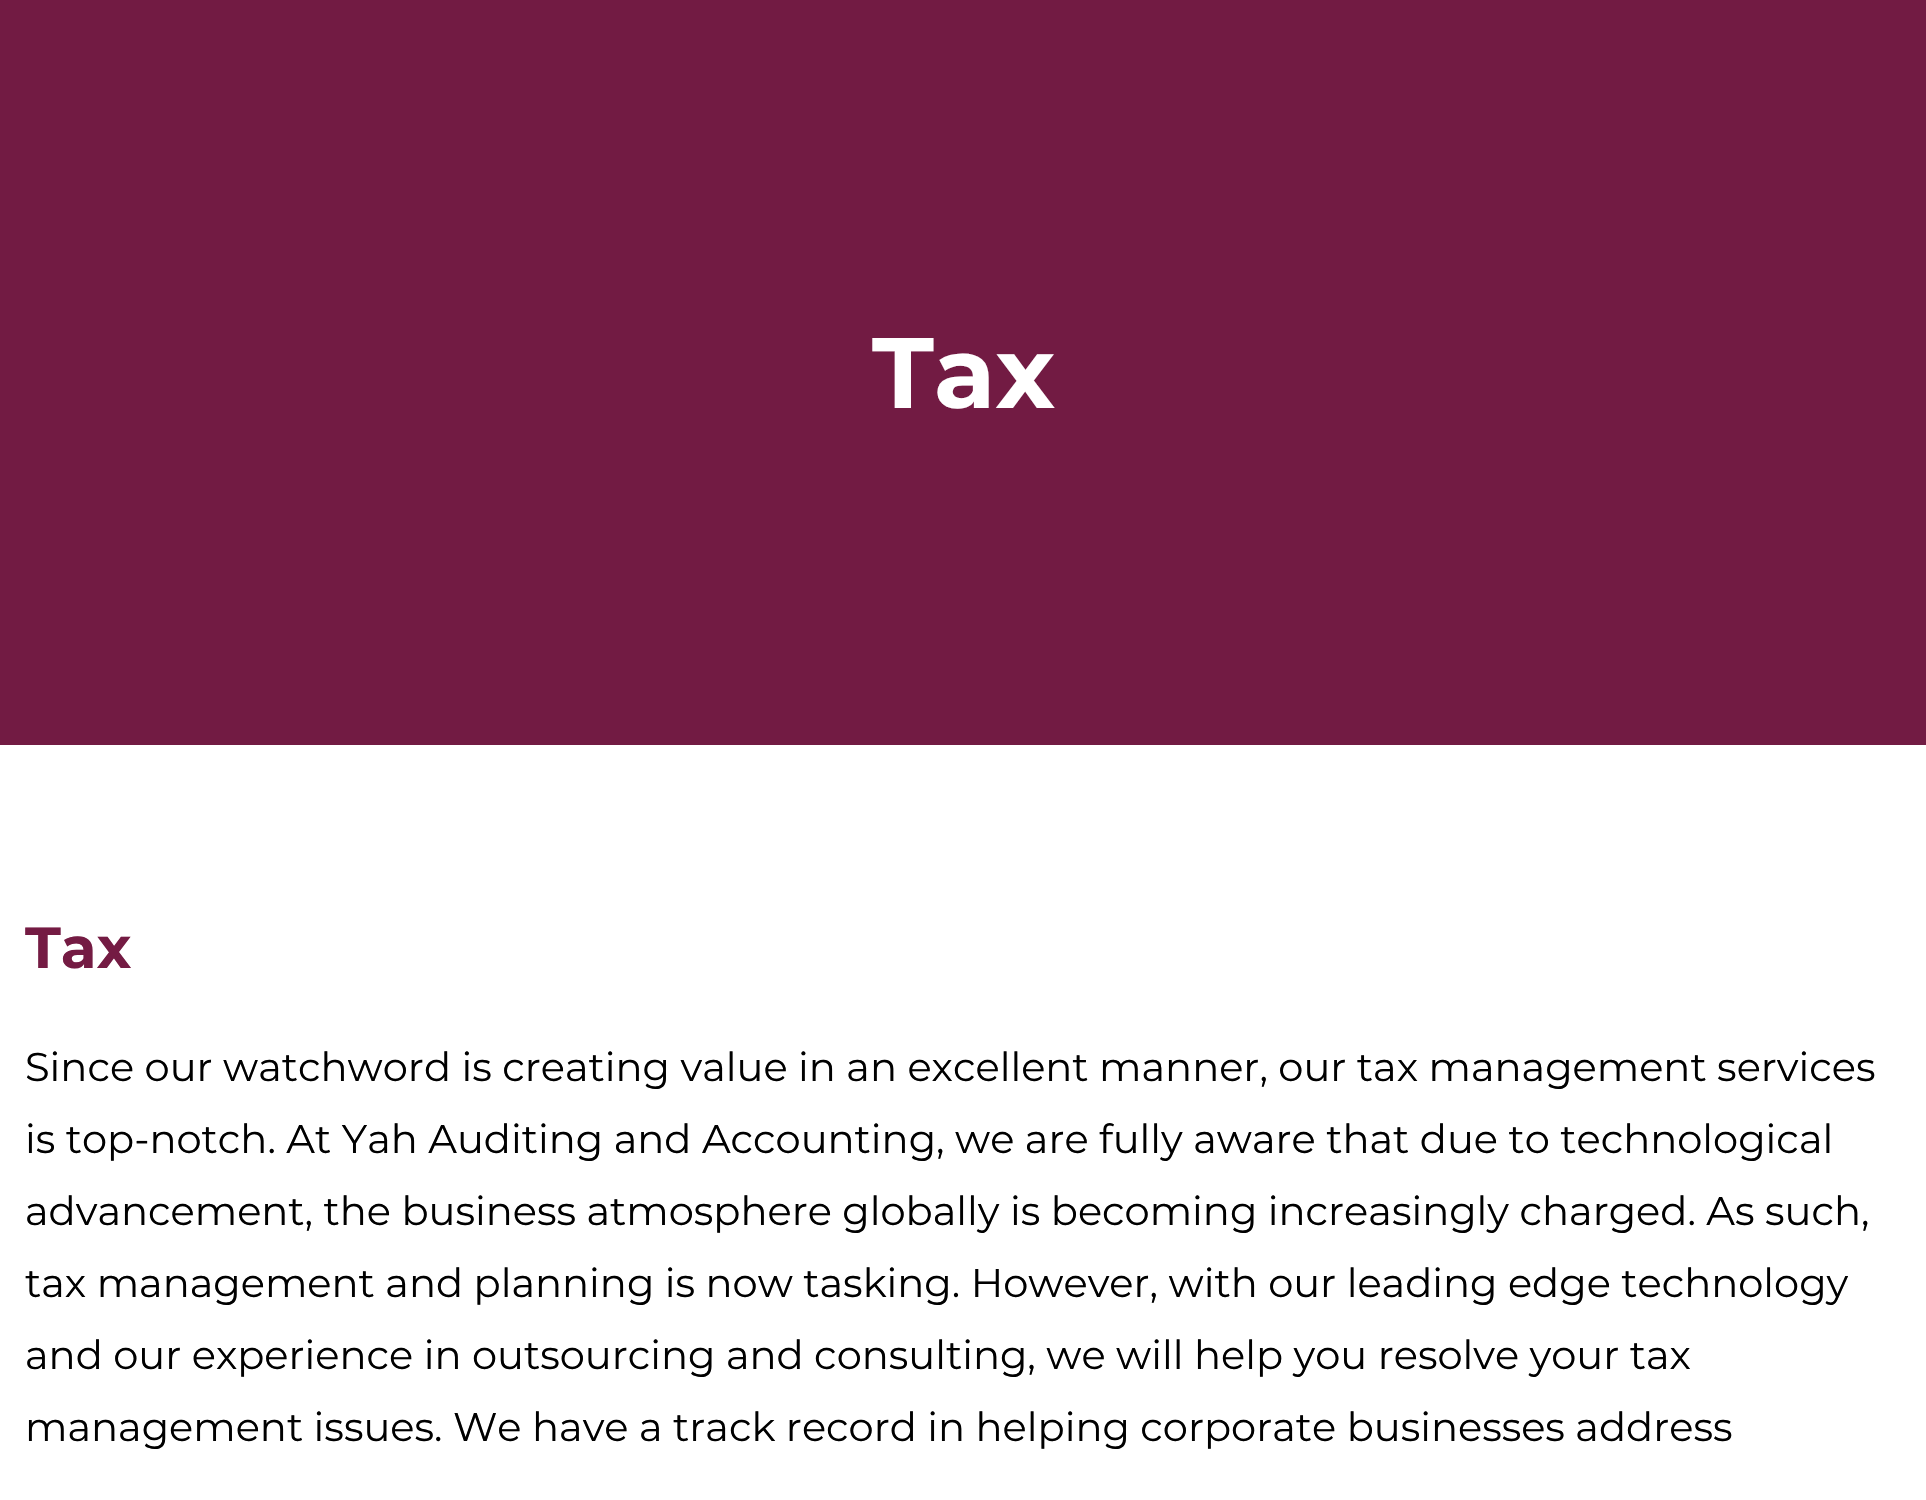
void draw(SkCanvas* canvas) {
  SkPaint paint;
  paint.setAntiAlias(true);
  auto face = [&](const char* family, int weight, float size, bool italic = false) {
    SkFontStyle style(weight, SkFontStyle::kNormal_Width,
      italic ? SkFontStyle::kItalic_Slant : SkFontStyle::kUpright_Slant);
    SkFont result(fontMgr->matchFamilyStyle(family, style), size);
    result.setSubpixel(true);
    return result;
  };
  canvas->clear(0xffffffff);
  paint.setColor(0xff721b43);
  canvas->drawRect(SkRect::MakeXYWH(0, 0, 1926, 745), paint);
  auto f0 = face("Montserrat", 700, 100);
  paint.setColor(0xffffffff);
  canvas->drawString("Tax", 872, 408, f0, paint);
  auto f1 = face("Montserrat", 700, 58);
  paint.setColor(0xff741b43);
  canvas->drawString("Tax", 25, 968, f1, paint);
  auto f2 = face("Montserrat", 400, 40);
  paint.setColor(0xff000000);
  {
    const struct { const char* s; float x, y; } items[] = {
      {"Since our watchword is creating value in an excellent manner, our tax management services", 25, 1081},
      {"is top-notch. At Yah Auditing and Accounting, we are fully aware that due to technological", 25, 1153},
      {"advancement, the business atmosphere globally is becoming increasingly charged. As such,", 25, 1225},
      {"tax management and planning is now tasking. However, with our leading edge technology", 25, 1297},
      {"and our experience in outsourcing and consulting, we will help you resolve your tax", 25, 1369},
      {"management issues. We have a track record in helping corporate businesses address", 25, 1441},
    };
    for (auto [s, x, y] : items) {
      canvas->drawString(s, x, y, f2, paint);
    }
  }
}
